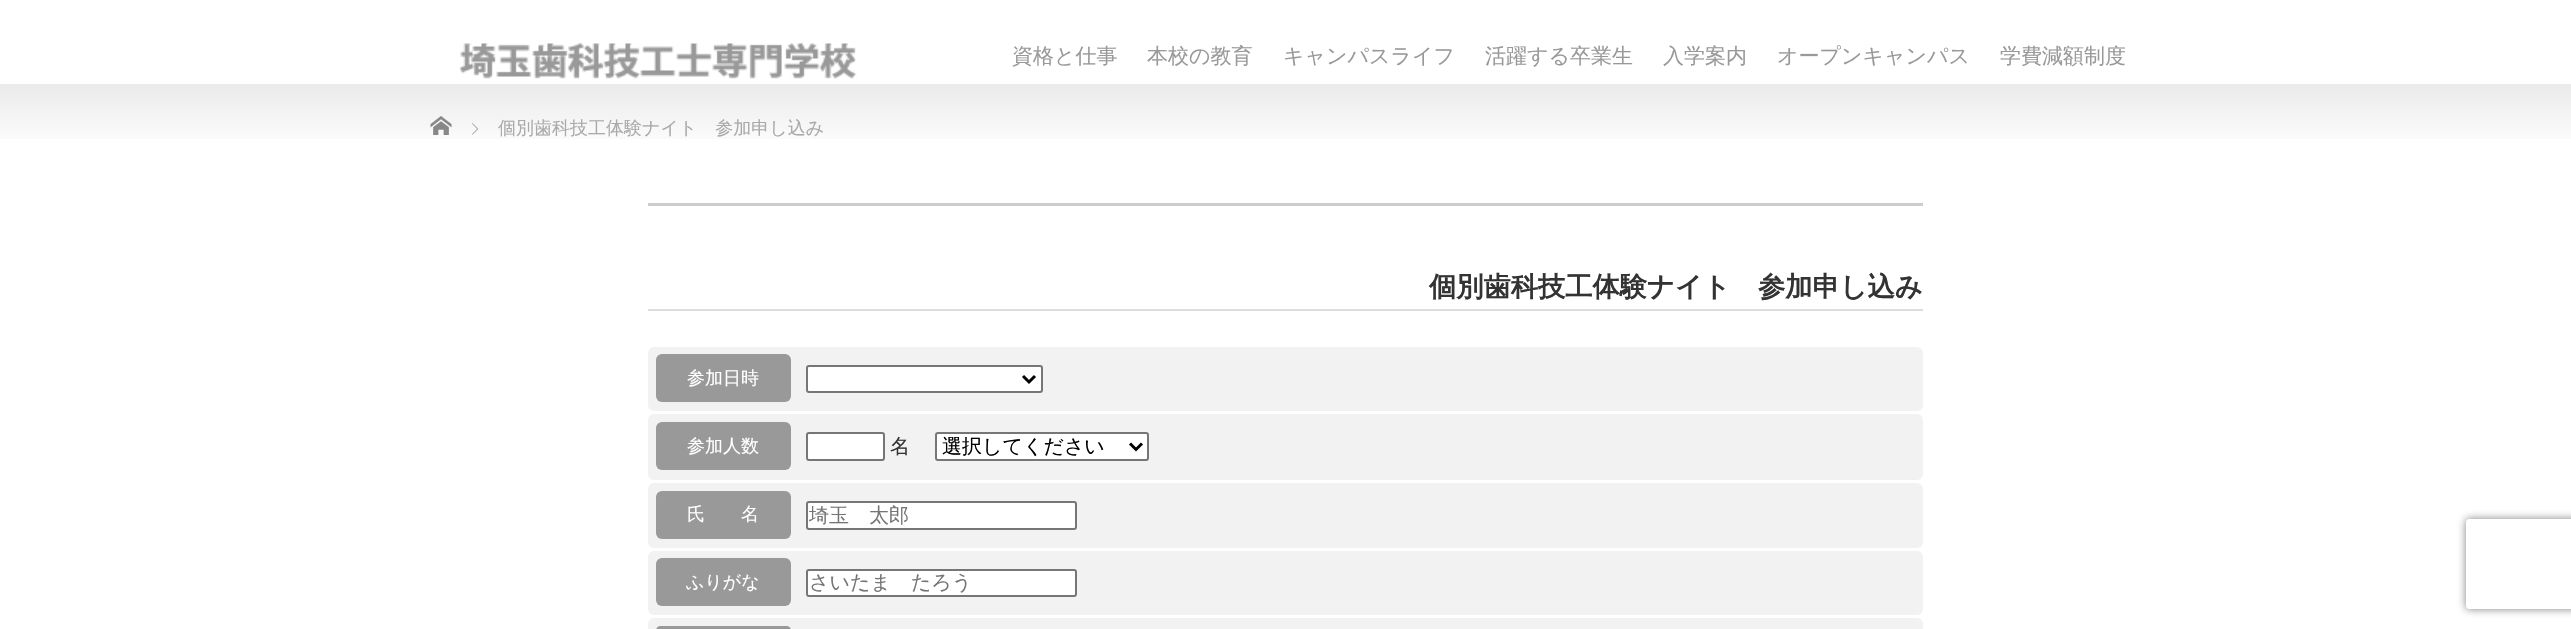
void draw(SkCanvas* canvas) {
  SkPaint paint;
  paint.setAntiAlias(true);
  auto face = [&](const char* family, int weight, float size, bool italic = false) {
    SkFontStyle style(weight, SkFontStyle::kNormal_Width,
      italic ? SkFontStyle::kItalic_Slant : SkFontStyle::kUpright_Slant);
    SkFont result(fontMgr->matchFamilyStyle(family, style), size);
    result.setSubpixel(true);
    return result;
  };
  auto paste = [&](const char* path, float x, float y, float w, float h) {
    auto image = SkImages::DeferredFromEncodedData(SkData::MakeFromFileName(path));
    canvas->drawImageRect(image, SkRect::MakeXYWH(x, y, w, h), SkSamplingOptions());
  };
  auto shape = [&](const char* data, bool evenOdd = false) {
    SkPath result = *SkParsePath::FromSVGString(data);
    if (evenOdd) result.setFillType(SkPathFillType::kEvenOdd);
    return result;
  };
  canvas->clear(0xffffffff);
  paste("img/1.png", 459, 42, 398, 37);
  paste("img/2.png", 0, 84, 2571, 55);
  paste("img/3.png", 430, 116, 22, 19);
  paste("img/4.png", 472, 123, 7, 12);
  paint.setColor(0xffcccccc);
  canvas->drawRect(SkRect::MakeXYWH(648, 203, 1275, 3), paint);
  paint.setColor(0xffdddddd);
  canvas->drawRect(SkRect::MakeXYWH(648, 309, 1275, 2), paint);
  paint.setColor(0xfff2f2f2);
  canvas->drawRoundRect(SkRect::MakeXYWH(648, 347, 1275, 64), 6, 6, paint);
  paint.setColor(0xff999999);
  canvas->drawRoundRect(SkRect::MakeXYWH(656, 354, 135, 48), 6, 6, paint);
  paint.setColor(0xffffffff);
  canvas->drawRoundRect(SkRect::MakeXYWH(807, 366, 235, 26), 2, 2, paint);
  paint.setStroke(true);
  paint.setStrokeWidth(2);
  paint.setColor(0xff767676);
  canvas->drawRoundRect(SkRect::MakeXYWH(807, 366, 235, 26), 2, 2, paint);
  paint.setStrokeWidth(3);
  paint.setColor(0xff000000);
  canvas->drawPath(shape("M1023 376L1029 382L1035 376"), paint);
  paint.setStroke(false);
  paint.setColor(0xfff2f2f2);
  canvas->drawRoundRect(SkRect::MakeXYWH(648, 414, 1275, 66), 6, 6, paint);
  paint.setColor(0xff999999);
  canvas->drawRoundRect(SkRect::MakeXYWH(656, 422, 135, 48), 6, 6, paint);
  paint.setColor(0xffffffff);
  canvas->drawRoundRect(SkRect::MakeXYWH(807, 433, 77, 27), 2, 2, paint);
  paint.setStroke(true);
  paint.setStrokeWidth(2);
  paint.setColor(0xff767676);
  canvas->drawRoundRect(SkRect::MakeXYWH(807, 433, 77, 27), 2, 2, paint);
  paint.setStroke(false);
  paint.setColor(0xffffffff);
  canvas->drawRoundRect(SkRect::MakeXYWH(936, 433, 212, 27), 2, 2, paint);
  paint.setStroke(true);
  paint.setColor(0xff767676);
  canvas->drawRoundRect(SkRect::MakeXYWH(936, 433, 212, 27), 2, 2, paint);
  paint.setStrokeWidth(3);
  paint.setColor(0xff000000);
  canvas->drawPath(shape("M1130 443.5L1136 449.5L1142 443.5"), paint);
  paint.setStroke(false);
  paint.setColor(0xfff2f2f2);
  canvas->drawRoundRect(SkRect::MakeXYWH(648, 483, 1275, 65), 6, 6, paint);
  paint.setColor(0xff999999);
  canvas->drawRoundRect(SkRect::MakeXYWH(656, 491, 135, 48), 6, 6, paint);
  paint.setColor(0xffffffff);
  canvas->drawRoundRect(SkRect::MakeXYWH(807, 502, 269, 27), 2, 2, paint);
  paint.setStroke(true);
  paint.setStrokeWidth(2);
  paint.setColor(0xff767676);
  canvas->drawRoundRect(SkRect::MakeXYWH(807, 502, 269, 27), 2, 2, paint);
  paint.setStroke(false);
  paint.setColor(0xfff2f2f2);
  canvas->drawRoundRect(SkRect::MakeXYWH(648, 551, 1275, 64), 6, 6, paint);
  paint.setColor(0xff999999);
  canvas->drawRoundRect(SkRect::MakeXYWH(656, 558, 135, 48), 6, 6, paint);
  paint.setColor(0xffffffff);
  canvas->drawRoundRect(SkRect::MakeXYWH(807, 570, 269, 26), 2, 2, paint);
  paint.setStroke(true);
  paint.setColor(0xff767676);
  canvas->drawRoundRect(SkRect::MakeXYWH(807, 570, 269, 26), 2, 2, paint);
  paint.setStroke(false);
  paint.setColor(0xfff2f2f2);
  canvas->drawRoundRect(SkRect::MakeXYWH(648, 618, 1275, 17), 6, 6, paint);
  paint.setColor(0xff999999);
  canvas->drawRoundRect(SkRect::MakeXYWH(656, 626, 135, 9), 6, 6, paint);
  canvas->save();
  canvas->clipPath(shape("M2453 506H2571V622H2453ZM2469 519H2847C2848.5 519 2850 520.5 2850 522V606C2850 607.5 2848.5 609 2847 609H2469C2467.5 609 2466 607.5 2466 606V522C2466 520.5 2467.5 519 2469 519Z", true), true);
  paint.setColor(0xff808080);
  paint.setMaskFilter(SkMaskFilter::MakeBlur(kNormal_SkBlurStyle, 4));
  canvas->drawRoundRect(SkRect::MakeXYWH(2466, 519, 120, 90), 3, 3, paint);
  paint.setMaskFilter(nullptr);
  canvas->restore();
  auto f0 = face("WenQuanYi Zen Hei", 500, 21);
  paint.setColor(0xff999999);
  {
    const struct { const char* s; float x, y; } items[] = {
      {"資格と仕事", 1012, 63},
      {"本校の教育", 1147, 63},
      {"キャンパスライフ", 1283, 63},
      {"活躍する卒業生", 1485, 63},
      {"入学案内", 1663, 63},
      {"オープンキャンパス", 1777, 63},
      {"学費減額制度", 2000, 63},
    };
    for (auto [s, x, y] : items) {
      canvas->drawString(s, x, y, f0, paint);
    }
  }
  auto f1 = face("WenQuanYi Zen Hei", 500, 18);
  paint.setColor(0xffaaaaaa);
  canvas->drawString("個別歯科技工体験ナイト　参加申し込み", 498, 134, f1, paint);
  auto f2 = face("WenQuanYi Zen Hei", 700, 27.25f);
  paint.setColor(0xff333333);
  canvas->drawString("個別歯科技工体験ナイト　参加申し込み", 1429, 296, f2, paint);
  paint.setColor(0xffffffff);
  canvas->drawString("参加日時", 687, 384, f1, paint);
  canvas->drawString("参加人数", 687, 452, f1, paint);
  auto f3 = face("WenQuanYi Zen Hei", 500, 20);
  paint.setColor(0xff333333);
  canvas->drawString("名", 890, 453, f3, paint);
  paint.setColor(0xff000000);
  canvas->drawString("選択してください", 942, 453, f3, paint);
  paint.setColor(0xffffffff);
  canvas->drawString("氏　　名", 687, 520, f1, paint);
  paint.setColor(0xff757575);
  canvas->drawString("埼玉　太郎", 809, 522, f3, paint);
  paint.setColor(0xffffffff);
  canvas->drawString("ふりがな", 686, 588, f1, paint);
  paint.setColor(0xff757575);
  canvas->drawString("さいたま　たろう", 809, 589, f3, paint);
}
